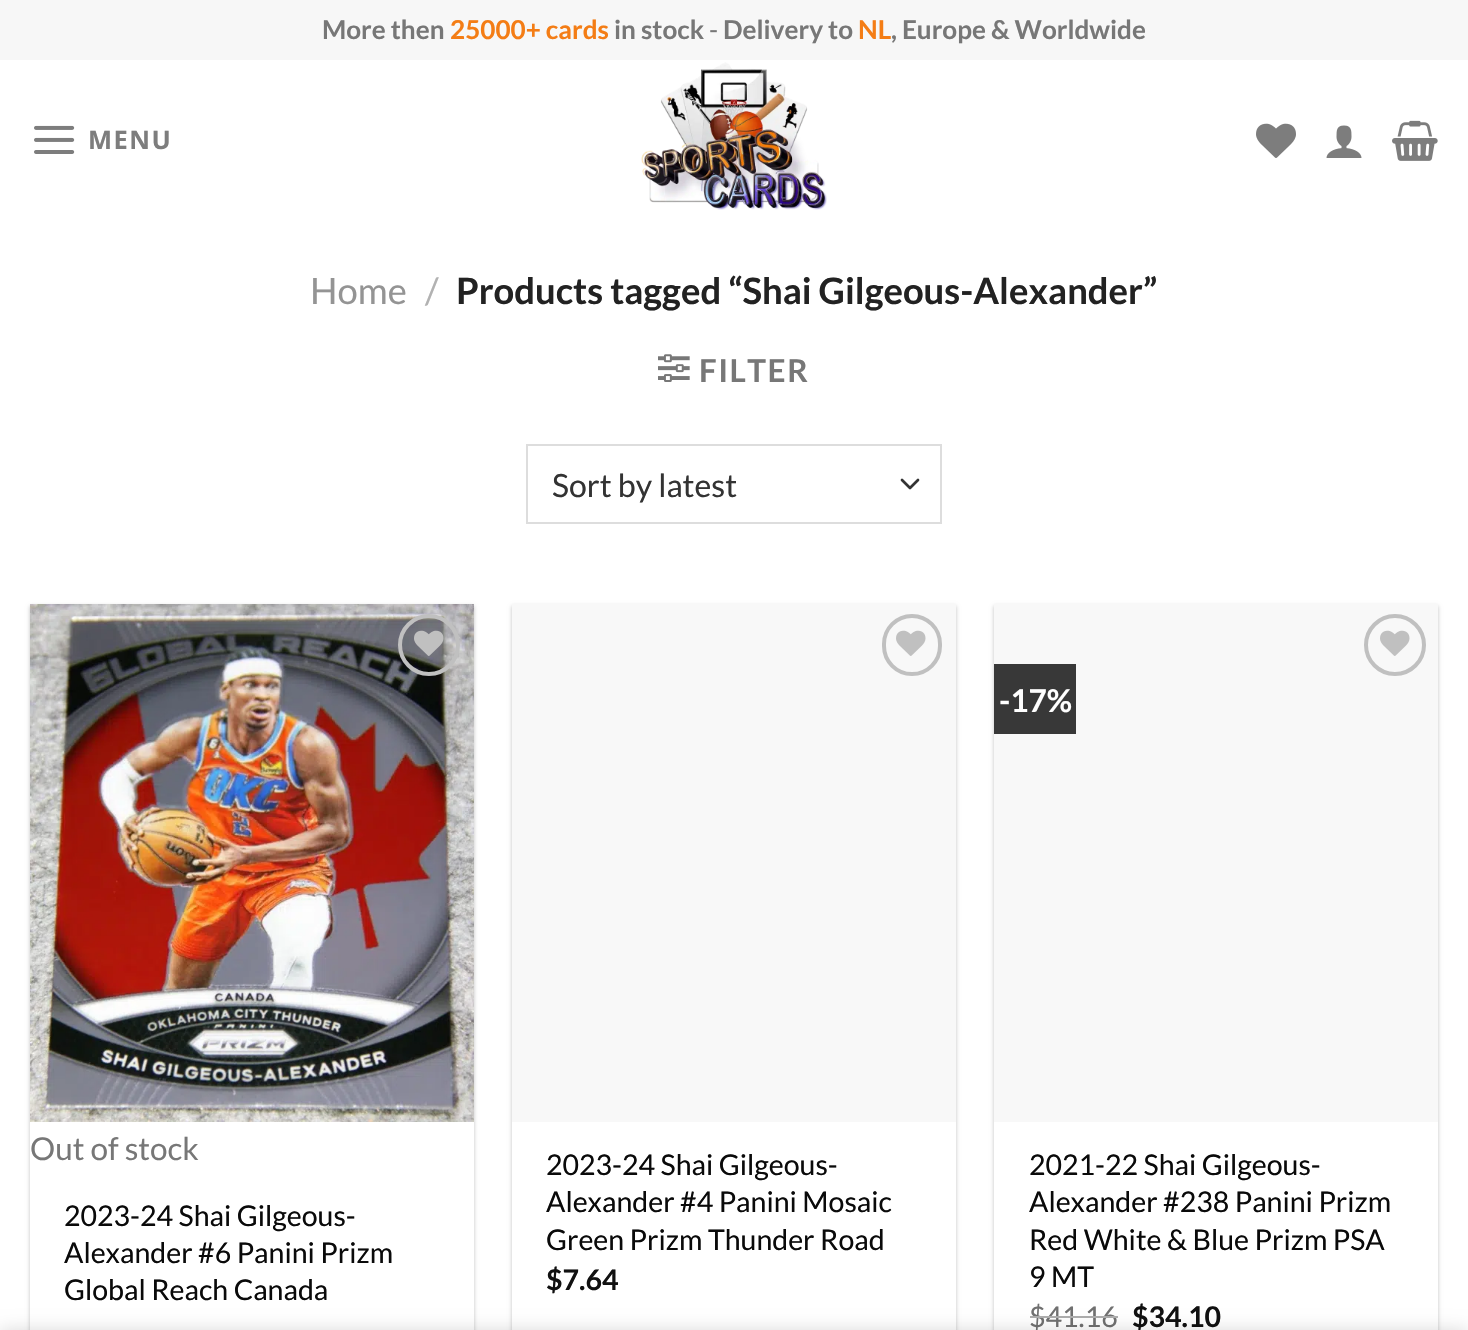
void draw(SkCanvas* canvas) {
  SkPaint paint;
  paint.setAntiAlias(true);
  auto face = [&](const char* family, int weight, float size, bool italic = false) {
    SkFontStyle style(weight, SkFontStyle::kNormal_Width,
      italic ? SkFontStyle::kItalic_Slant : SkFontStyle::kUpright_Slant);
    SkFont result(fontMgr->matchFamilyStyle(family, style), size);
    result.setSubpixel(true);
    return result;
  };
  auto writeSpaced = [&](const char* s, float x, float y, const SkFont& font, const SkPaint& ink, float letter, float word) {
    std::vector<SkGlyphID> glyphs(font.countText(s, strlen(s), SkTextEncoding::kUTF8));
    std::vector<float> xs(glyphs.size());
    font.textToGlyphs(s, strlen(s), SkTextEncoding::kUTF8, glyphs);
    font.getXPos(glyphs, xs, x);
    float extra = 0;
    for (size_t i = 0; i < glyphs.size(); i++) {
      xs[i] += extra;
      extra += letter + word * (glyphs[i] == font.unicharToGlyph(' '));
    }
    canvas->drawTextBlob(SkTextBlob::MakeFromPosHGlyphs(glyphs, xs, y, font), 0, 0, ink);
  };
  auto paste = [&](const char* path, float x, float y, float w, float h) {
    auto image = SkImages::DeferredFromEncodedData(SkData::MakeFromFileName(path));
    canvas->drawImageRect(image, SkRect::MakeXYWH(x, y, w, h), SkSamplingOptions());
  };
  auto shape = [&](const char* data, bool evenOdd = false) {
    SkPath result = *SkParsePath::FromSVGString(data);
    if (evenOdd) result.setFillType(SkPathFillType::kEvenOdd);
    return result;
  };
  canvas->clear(0xffffffff);
  paint.setColor(0xfff7f7f7);
  canvas->drawRect(SkRect::MakeXYWH(0, 0, 1468, 60), paint);
  paste("img/1.png", 34, 125, 41, 29);
  paste("img/2.png", 641, 62, 186, 148);
  paste("img/3.png", 1256, 123, 40, 35);
  paste("img/4.png", 1326, 125, 36, 33);
  paste("img/5.png", 1392, 120, 46, 41);
  paste("img/6.png", 658, 354, 32, 28);
  paint.setStroke(true);
  paint.setStrokeWidth(2.7f);
  paint.setStrokeCap(SkPaint::kRound_Cap);
  paint.setStrokeJoin(SkPaint::kRound_Join);
  paint.setColor(0xff333333);
  canvas->drawPath(shape("M902 480L910 488L918 480"), paint);
  paint.setStrokeWidth(2);
  paint.setStrokeCap(SkPaint::kButt_Cap);
  paint.setStrokeJoin(SkPaint::kMiter_Join);
  paint.setColor(0xffdddddd);
  canvas->drawRect(SkRect::MakeXYWH(527, 445, 414, 78), paint);
  canvas->save();
  canvas->clipPath(shape("M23 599H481V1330H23ZM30 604H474V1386H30Z", true), true);
  paint.setStroke(false);
  paint.setColor(0x3d000000);
  paint.setMaskFilter(SkMaskFilter::MakeBlur(kNormal_SkBlurStyle, 2));
  canvas->drawRect(SkRect::MakeXYWH(30, 606, 444, 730), paint);
  paint.setMaskFilter(nullptr);
  canvas->restore();
  paste("img/7.png", 30, 604, 444, 518);
  paint.setStroke(true);
  paint.setStrokeWidth(4);
  paint.setColor(0xffc0c0c0);
  canvas->drawCircle(429, 645, 29, paint);
  paste("img/8.png", 414, 630, 30, 26);
  canvas->save();
  canvas->clipPath(shape("M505 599H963V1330H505ZM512 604H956V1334H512Z", true), true);
  paint.setStroke(false);
  paint.setColor(0x3d000000);
  paint.setMaskFilter(SkMaskFilter::MakeBlur(kNormal_SkBlurStyle, 2));
  canvas->drawRect(SkRect::MakeXYWH(512, 606, 444, 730), paint);
  paint.setMaskFilter(nullptr);
  canvas->restore();
  paint.setColor(0xfff8f8f8);
  canvas->drawRect(SkRect::MakeXYWH(512, 604, 444, 518), paint);
  paint.setStroke(true);
  paint.setColor(0xffc0c0c0);
  canvas->drawRoundRect(SkRect::MakeXYWH(884, 616, 56, 58), 28, 28, paint);
  paste("img/9.png", 896, 630, 30, 26);
  canvas->save();
  canvas->clipPath(shape("M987 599H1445V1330H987ZM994 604H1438V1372H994Z", true), true);
  paint.setStroke(false);
  paint.setColor(0x3d000000);
  paint.setMaskFilter(SkMaskFilter::MakeBlur(kNormal_SkBlurStyle, 2));
  canvas->drawRect(SkRect::MakeXYWH(994, 606, 444, 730), paint);
  paint.setMaskFilter(nullptr);
  canvas->restore();
  paint.setColor(0xfff8f8f8);
  canvas->drawRect(SkRect::MakeXYWH(994, 604, 444, 518), paint);
  paint.setColor(0xff383838);
  canvas->drawRect(SkRect::MakeXYWH(994, 664, 82, 70), paint);
  paint.setStroke(true);
  paint.setColor(0xffc0c0c0);
  canvas->drawCircle(1395, 645, 29, paint);
  paste("img/9.png", 1380, 630, 30, 26);
  auto f0 = face("Lato", 700, 26.1f);
  paint.setStroke(false);
  paint.setColor(0xff777777);
  canvas->drawString("More then", 322, 39, f0, paint);
  paint.setColor(0xfff47d15);
  canvas->drawString("25000+ cards", 450, 39, f0, paint);
  paint.setColor(0xff777777);
  canvas->drawString("in stock", 614, 39, f0, paint);
  auto f1 = face("Lato", 400, 26.1f);
  canvas->drawString("-", 709, 39, f1, paint);
  canvas->drawString("Delivery to", 723, 39, f0, paint);
  paint.setColor(0xfff47d15);
  canvas->drawString("NL", 858, 39, f0, paint);
  paint.setColor(0xff777777);
  canvas->drawString(", Europe & Worldwide", 891, 39, f0, paint);
  auto f2 = face("Open Sans", 700, 25.5f);
  paint.setColor(0xff7d7d7d);
  writeSpaced("MENU", 88, 149, f2, paint, 1.5f, 0);
  auto f3 = face("Lato", 400, 36.4f);
  paint.setColor(0xff949494);
  canvas->drawString("Home", 310, 304, f3, paint);
  paint.setColor(0xffb2b2b2);
  canvas->drawString("/", 425, 304, f3, paint);
  auto f4 = face("Lato", 700, 36.4f);
  paint.setColor(0xff222222);
  canvas->drawString("Products tagged “Shai Gilgeous-Alexander”", 456, 304, f4, paint);
  auto f5 = face("Lato", 700, 31.5f);
  paint.setColor(0xff777777);
  writeSpaced("FILTER", 699, 382, f5, paint, 1.5f, 0);
  auto f6 = face("Lato", 400, 32);
  paint.setColor(0xff333333);
  canvas->drawString("Sort by latest", 552, 497, f6, paint);
  auto f7 = face("Lato", 400, 31.5f);
  paint.setColor(0xff777777);
  canvas->drawString("Out of stock", 30, 1160, f7, paint);
  auto f8 = face("Lato", 400, 28.5f);
  paint.setColor(0xff0a0a0a);
  {
    const struct { const char* s; float x, y; } items[] = {
      {"2023-24 Shai Gilgeous-", 64, 1226},
      {"Alexander #6 Panini Prizm", 64, 1263},
      {"Global Reach Canada", 64, 1300},
      {"2023-24 Shai Gilgeous-", 546, 1175},
      {"Alexander #4 Panini Mosaic", 546, 1212},
      {"Green Prizm Thunder Road", 546, 1250},
    };
    for (auto [s, x, y] : items) {
      canvas->drawString(s, x, y, f8, paint);
    }
  }
  auto f9 = face("Lato", 700, 28.5f);
  paint.setColor(0xff111111);
  canvas->drawString("$7.64", 546, 1290, f9, paint);
  paint.setColor(0xffffffff);
  canvas->drawString("-17%", 999, 712, f5, paint);
  paint.setColor(0xff0a0a0a);
  {
    const struct { const char* s; float x, y; } items[] = {
      {"2021-22 Shai Gilgeous-", 1029, 1175},
      {"Alexander #238 Panini Prizm", 1029, 1212},
      {"Red White & Blue Prizm PSA", 1029, 1250},
      {"9 MT", 1029, 1287},
    };
    for (auto [s, x, y] : items) {
      canvas->drawString(s, x, y, f8, paint);
    }
  }
  paint.setColor(0xff707070);
  canvas->drawString("$41.16", 1029, 1327, f8, paint);
  paint.setColor(0xffadadad);
  canvas->drawRect(SkRect::MakeXYWH(1030, 1316, 88, 2), paint);
  paint.setColor(0xff111111);
  canvas->drawString("$34.10", 1132, 1327, f9, paint);
  paint.setColor(0x24000000);
  paint.setMaskFilter(SkMaskFilter::MakeBlur(kNormal_SkBlurStyle, 9));
  canvas->drawRect(SkRect::MakeXYWH(0, 1330, 1468, 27), paint);
  paint.setMaskFilter(nullptr);
}
